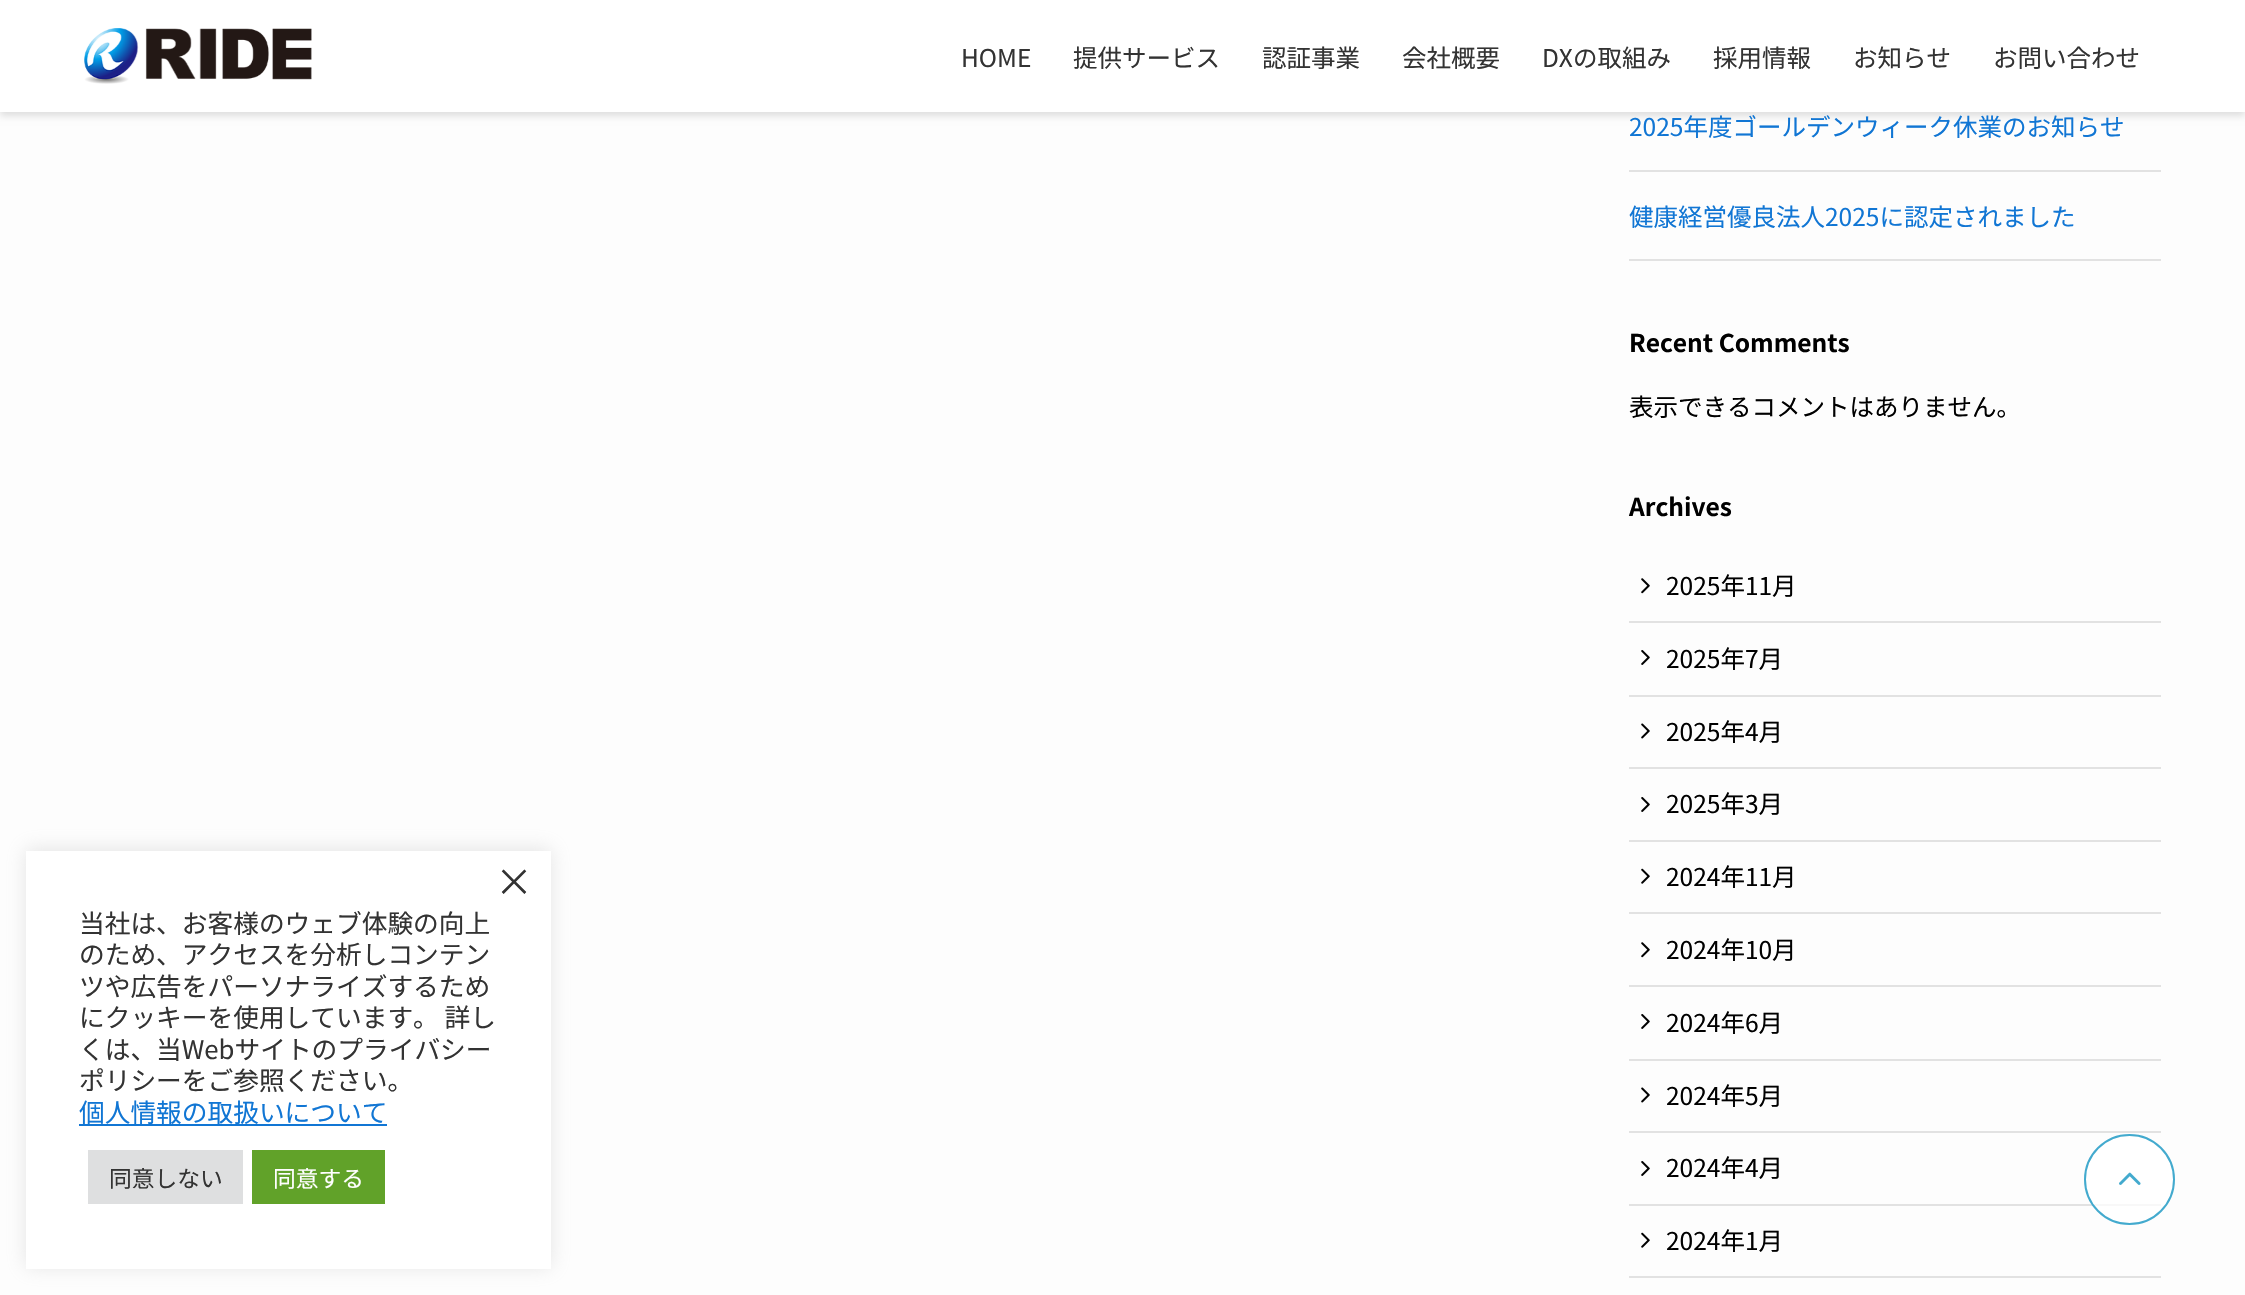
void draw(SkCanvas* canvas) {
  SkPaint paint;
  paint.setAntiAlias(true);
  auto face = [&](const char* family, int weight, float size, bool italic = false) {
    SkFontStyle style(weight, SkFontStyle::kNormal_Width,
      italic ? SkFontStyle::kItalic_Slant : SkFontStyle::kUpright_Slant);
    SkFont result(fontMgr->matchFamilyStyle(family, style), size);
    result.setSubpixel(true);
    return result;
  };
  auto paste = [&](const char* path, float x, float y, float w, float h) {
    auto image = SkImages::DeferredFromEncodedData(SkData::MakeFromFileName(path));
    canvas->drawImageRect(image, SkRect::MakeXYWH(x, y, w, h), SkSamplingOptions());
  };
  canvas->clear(0xfffdfdfd);
  paint.setColor(0x4dacabab);
  paint.setMaskFilter(SkMaskFilter::MakeBlur(kNormal_SkBlurStyle, 9));
  canvas->drawRect(SkRect::MakeXYWH(26, 849, 525, 418), paint);
  paint.setMaskFilter(nullptr);
  {
    const struct { float x, y, w, h; SkColor color; } items[] = {
      {26, 851, 525, 418, 0xffffffff},
      {79, 1124, 308, 2, 0xff1176d4},
      {88, 1150, 155, 54, 0xffdedfe0},
      {252, 1150, 133, 54, 0xff61a229},
    };
    for (auto [x, y, w, h, color] : items) {
      paint.setColor(color);
      canvas->drawRect(SkRect::MakeXYWH(x, y, w, h), paint);
    }
  }
  paint.setColor(0x1f000000);
  paint.setMaskFilter(SkMaskFilter::MakeBlur(kNormal_SkBlurStyle, 3.5f));
  canvas->drawRect(SkRect::MakeXYWH(0, 4, 2245, 112), paint);
  paint.setMaskFilter(nullptr);
  paint.setColor(0xffffffff);
  canvas->drawRect(SkRect::MakeXYWH(0, 0, 2245, 112), paint);
  paste("img/1.png", 84, 28, 228, 56);
  {
    const struct { float x, y, w, h; SkColor color; } items[] = {
      {1629, 170, 532, 2, 0xffe2e2e2},
      {1629, 259, 532, 2, 0xffe2e2e2},
      {1629, 621, 532, 2, 0xffe2e2e2},
    };
    for (auto [x, y, w, h, color] : items) {
      paint.setColor(color);
      canvas->drawRect(SkRect::MakeXYWH(x, y, w, h), paint);
    }
  }
  paste("img/2.png", 1641, 578, 9, 16);
  canvas->drawRect(SkRect::MakeXYWH(1629, 695, 532, 2), paint);
  paste("img/3.png", 1641, 650, 9, 15);
  canvas->drawRect(SkRect::MakeXYWH(1629, 767, 532, 2), paint);
  paste("img/4.png", 1641, 723, 9, 16);
  canvas->drawRect(SkRect::MakeXYWH(1629, 840, 532, 2), paint);
  paste("img/3.png", 1641, 797, 9, 15);
  canvas->drawRect(SkRect::MakeXYWH(1629, 912, 532, 2), paint);
  paste("img/5.png", 1641, 868, 9, 16);
  canvas->drawRect(SkRect::MakeXYWH(1629, 985, 532, 2), paint);
  paste("img/2.png", 1641, 942, 9, 16);
  canvas->drawRect(SkRect::MakeXYWH(1629, 1059, 532, 2), paint);
  paste("img/3.png", 1641, 1014, 9, 15);
  canvas->drawRect(SkRect::MakeXYWH(1629, 1131, 532, 2), paint);
  paste("img/4.png", 1641, 1087, 9, 16);
  canvas->drawRect(SkRect::MakeXYWH(1629, 1204, 532, 2), paint);
  paste("img/3.png", 1641, 1161, 9, 15);
  canvas->drawRect(SkRect::MakeXYWH(1629, 1276, 532, 2), paint);
  paste("img/5.png", 1641, 1232, 9, 16);
  paint.setColor(0xbfffffff);
  canvas->drawCircle(2129.5f, 1179.5f, 45.5f, paint);
  paint.setStroke(true);
  paint.setStrokeWidth(2);
  paint.setColor(0xbf048ebe);
  canvas->drawCircle(2129.5f, 1179.5f, 44.5f, paint);
  paste("img/6.png", 2119, 1172, 22, 13);
  auto f0 = face("Noto Sans JP", 400, 38);
  paint.setStroke(false);
  paint.setColor(0xff333333);
  canvas->drawString("×", 495, 896, f0, paint);
  auto f1 = face("Noto Sans JP", 400, 25.7f);
  {
    const struct { const char* s; float x, y; } items[] = {
      {"当社は、お客様のウェブ体験の向上", 79, 933},
      {"のため、アクセスを分析しコンテン", 79, 964},
      {"ツや広告をパーソナライズするため", 79, 996},
      {"にクッキーを使用しています。 詳し", 79, 1027},
      {"くは、当Webサイトのプライバシー", 79, 1059},
      {"ポリシーをご参照ください。", 79, 1090},
    };
    for (auto [s, x, y] : items) {
      canvas->drawString(s, x, y, f1, paint);
    }
  }
  paint.setColor(0xff1176d4);
  canvas->drawString("個人情報の取扱いについて", 79, 1122, f1, paint);
  auto f2 = face("Noto Sans JP", 400, 22.75f);
  paint.setColor(0xff333333);
  canvas->drawString("同意しない", 109, 1187, f2, paint);
  paint.setColor(0xffffffff);
  canvas->drawString("同意する", 273, 1187, f2, paint);
  auto f3 = face("Noto Sans JP", 400, 24.5f);
  paint.setColor(0xff333333);
  {
    const struct { const char* s; float x, y; } items[] = {
      {"HOME", 961, 67},
      {"提供サービス", 1073, 67},
      {"認証事業", 1262, 67},
      {"会社概要", 1402, 67},
      {"DXの取組み", 1542, 67},
      {"採用情報", 1713, 67},
      {"お知らせ", 1853, 67},
      {"お問い合わせ", 1993, 67},
    };
    for (auto [s, x, y] : items) {
      canvas->drawString(s, x, y, f3, paint);
    }
  }
  paint.setColor(0xff1176d4);
  canvas->drawString("2025年度ゴールデンウィーク休業のお知らせ", 1629, 136, f3, paint);
  canvas->drawString("健康経営優良法人2025に認定されました", 1629, 226, f3, paint);
  auto f4 = face("Noto Sans JP", 700, 24.5f);
  paint.setColor(0xff000000);
  canvas->drawString("Recent Comments", 1629, 352, f4, paint);
  canvas->drawString("表示できるコメントはありません。", 1629, 416, f3, paint);
  canvas->drawString("Archives", 1629, 516, f4, paint);
  {
    const struct { const char* s; float x, y; } items[] = {
      {"2025年11月", 1666, 595},
      {"2025年7月", 1666, 668},
      {"2025年4月", 1666, 741},
      {"2025年3月", 1666, 813},
      {"2024年11月", 1666, 886},
      {"2024年10月", 1666, 959},
      {"2024年6月", 1666, 1032},
      {"2024年5月", 1666, 1105},
      {"2024年4月", 1666, 1177},
      {"2024年1月", 1666, 1250},
    };
    for (auto [s, x, y] : items) {
      canvas->drawString(s, x, y, f3, paint);
    }
  }
}
